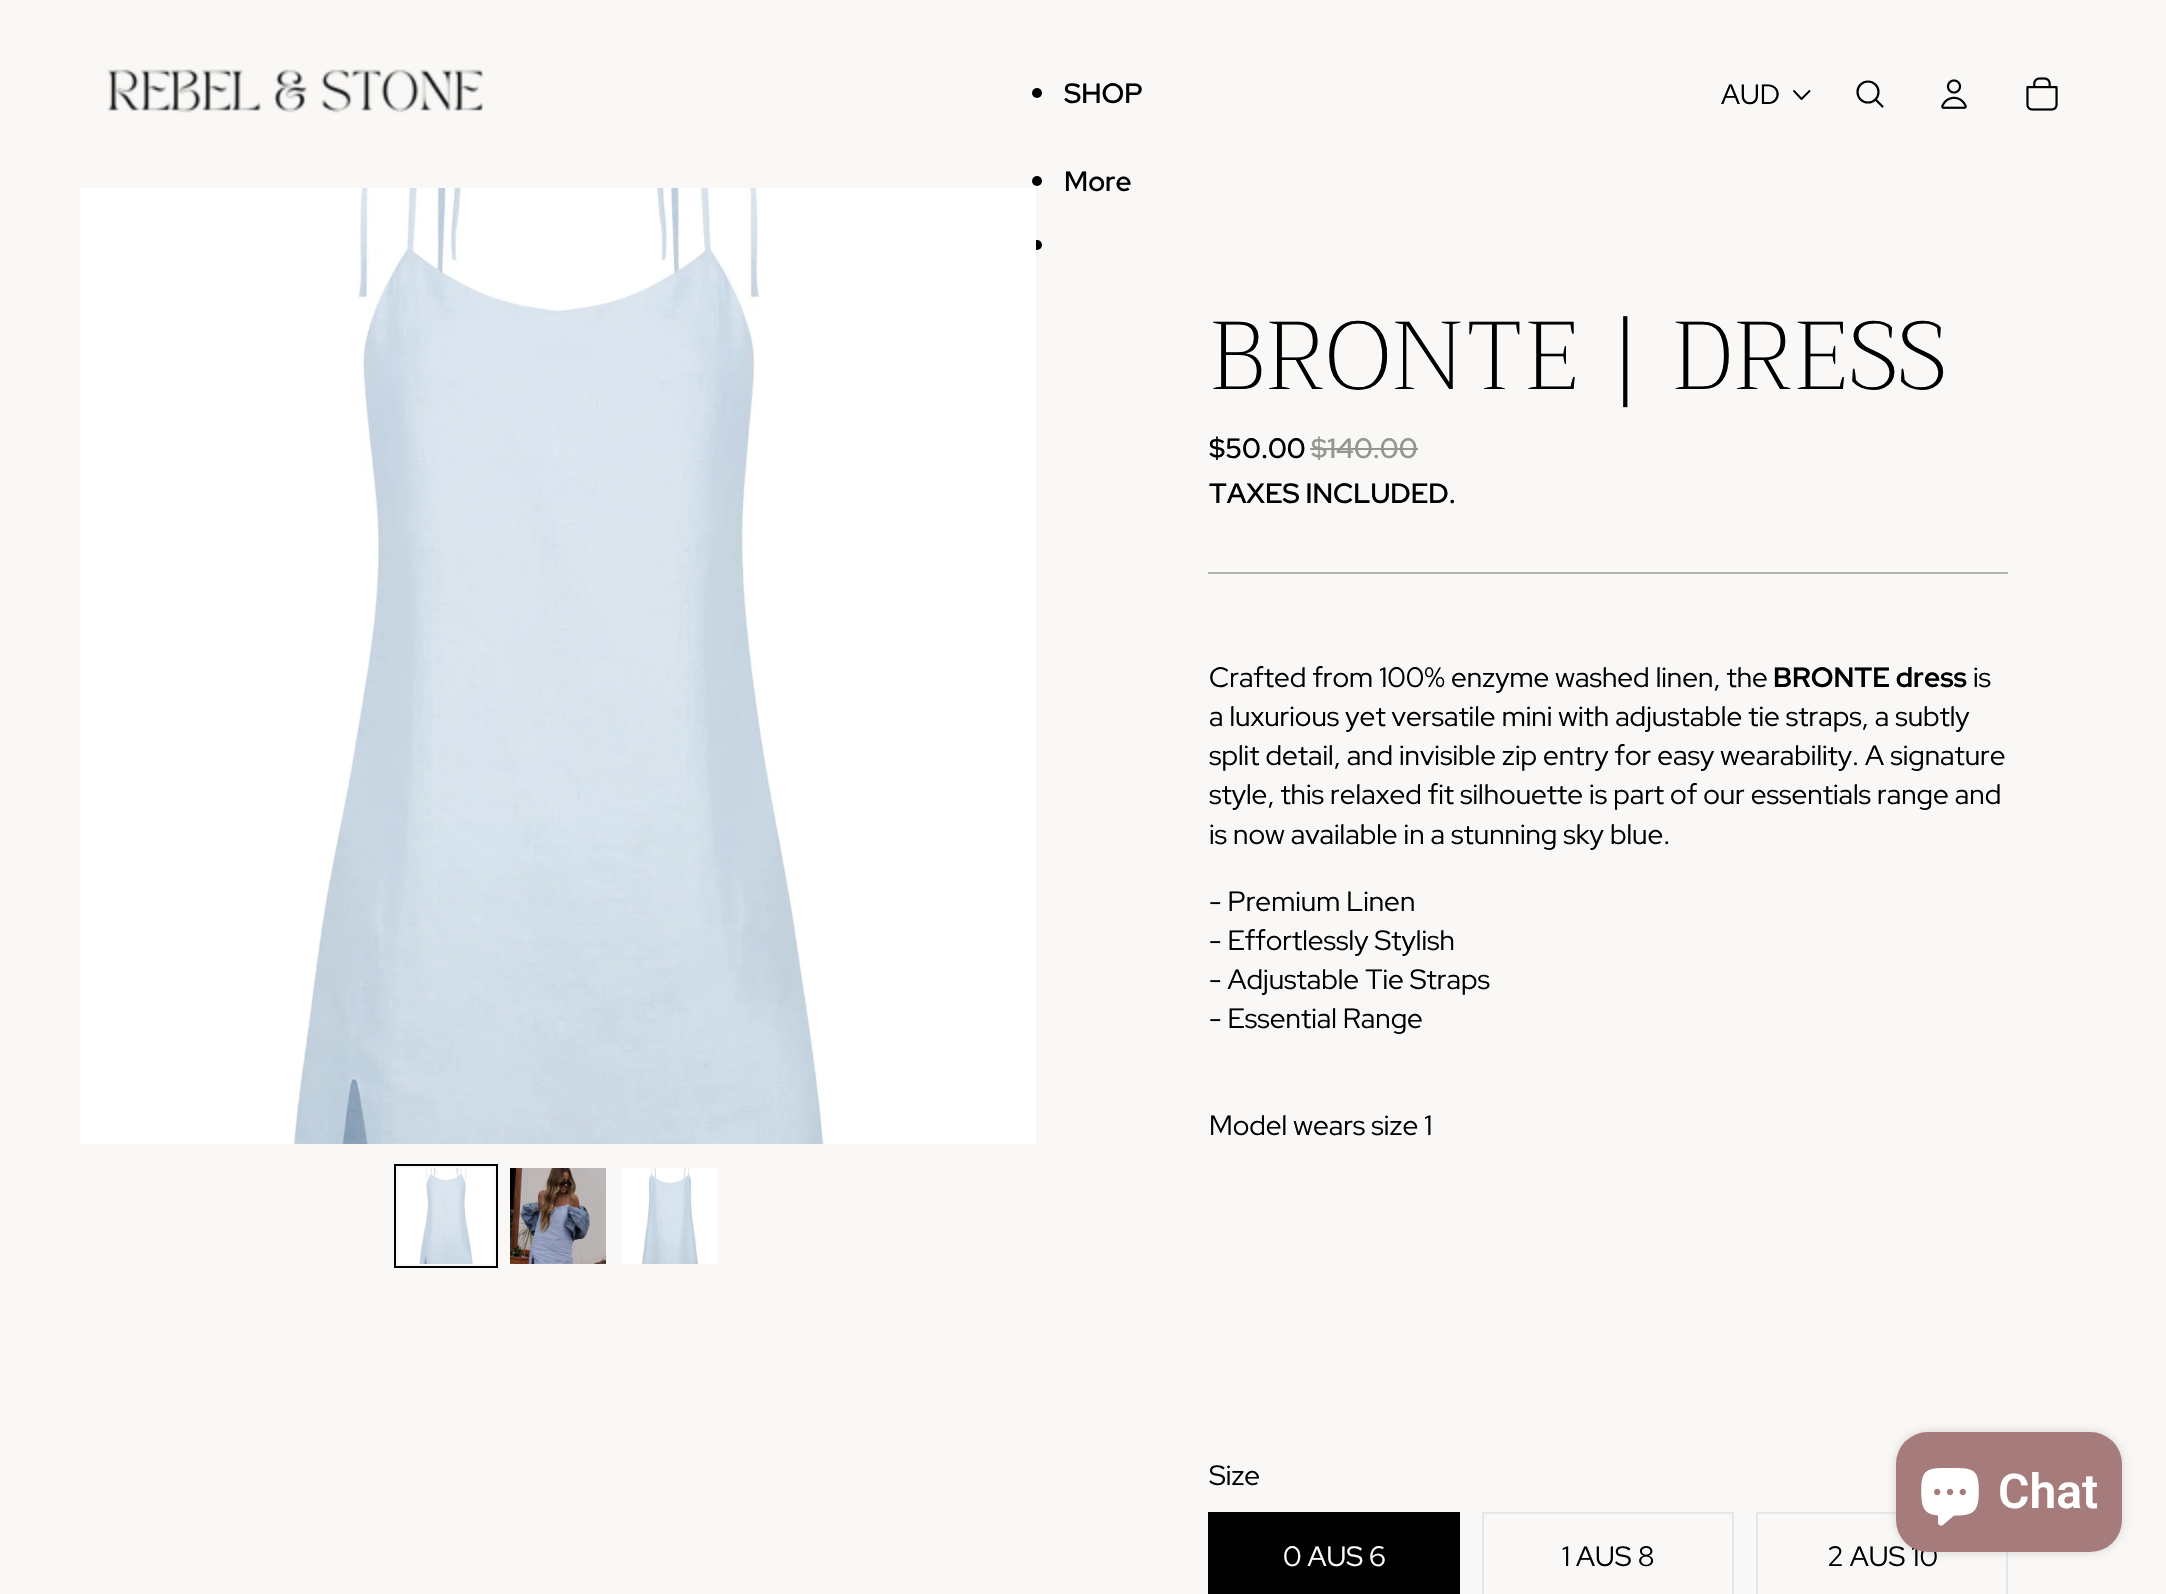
void draw(SkCanvas* canvas) {
  SkPaint paint;
  paint.setAntiAlias(true);
  auto face = [&](const char* family, int weight, float size, bool italic = false) {
    SkFontStyle style(weight, SkFontStyle::kNormal_Width,
      italic ? SkFontStyle::kItalic_Slant : SkFontStyle::kUpright_Slant);
    SkFont result(fontMgr->matchFamilyStyle(family, style), size);
    result.setSubpixel(true);
    return result;
  };
  auto paste = [&](const char* path, float x, float y, float w, float h) {
    auto image = SkImages::DeferredFromEncodedData(SkData::MakeFromFileName(path));
    canvas->drawImageRect(image, SkRect::MakeXYWH(x, y, w, h), SkSamplingOptions());
  };
  auto shape = [&](const char* data, bool evenOdd = false) {
    SkPath result = *SkParsePath::FromSVGString(data);
    if (evenOdd) result.setFillType(SkPathFillType::kEvenOdd);
    return result;
  };
  canvas->clear(0xfff9f8f6);
  paste("img/1.png", 107, 69, 377, 44);
  paint.setColor(0xff000000);
  canvas->drawCircle(1037, 93, 5, paint);
  canvas->drawCircle(1037, 181, 5, paint);
  canvas->drawCircle(1037, 245, 5, paint);
  paint.setStroke(true);
  paint.setStrokeWidth(1.9f);
  paint.setStrokeCap(SkPaint::kRound_Cap);
  paint.setStrokeJoin(SkPaint::kRound_Join);
  canvas->drawPath(shape("M1809.5 91L1801.5 99L1794 91"), paint);
  paint.setStrokeWidth(2.2f);
  paint.setStrokeCap(SkPaint::kButt_Cap);
  paint.setStrokeJoin(SkPaint::kMiter_Join);
  canvas->drawCircle(1868, 92, 10.5f, paint);
  paint.setStrokeCap(SkPaint::kRound_Cap);
  paint.setStrokeJoin(SkPaint::kRound_Join);
  canvas->drawPath(shape("M1875.5 99.5L1882.5 106.5"), paint);
  paste("img/2.png", 1941, 79, 26, 30);
  paste("img/3.png", 2026, 77, 32, 34);
  paste("img/4.png", 80, 188, 956, 956);
  paste("img/5.png", 398, 1168, 96, 96);
  paint.setStrokeWidth(2);
  paint.setStrokeCap(SkPaint::kButt_Cap);
  paint.setStrokeJoin(SkPaint::kMiter_Join);
  canvas->drawRect(SkRect::MakeXYWH(395, 1165, 102, 102), paint);
  paste("img/6.png", 510, 1168, 96, 96);
  paste("img/7.png", 622, 1168, 96, 96);
  paint.setStroke(false);
  paint.setColor(0xff959594);
  canvas->drawRect(SkRect::MakeXYWH(1310, 448, 108, 2), paint);
  paint.setColor(0xffb3b3b1);
  canvas->drawPath(shape("M2008 572V574L2006 572Z"), paint);
  paint.setColor(0x47000000);
  canvas->drawPath(shape("M2008 574H1208V572H2006Z"), paint);
  paint.setColor(0xff000000);
  canvas->drawRect(SkRect::MakeXYWH(1208, 1512, 252, 82), paint);
  paint.setStroke(true);
  paint.setColor(0xffe6e6e6);
  canvas->drawRect(SkRect::MakeXYWH(1483, 1513, 250, 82), paint);
  canvas->drawRect(SkRect::MakeXYWH(1757, 1513, 250, 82), paint);
  paint.setStroke(false);
  paint.setColor(0x26000000);
  paint.setMaskFilter(SkMaskFilter::MakeBlur(kNormal_SkBlurStyle, 5));
  canvas->drawRoundRect(SkRect::MakeXYWH(1896, 1432, 226, 120), 32, 32, paint);
  paint.setMaskFilter(nullptr);
  auto f0 = face("Red Hat Display", 600, 28);
  paint.setColor(0xff000000);
  canvas->drawString("SHOP", 1064, 103, f0, paint);
  canvas->drawString("More", 1064, 191, f0, paint);
  auto f1 = face("Red Hat Display", 400, 28);
  canvas->drawString("AUD", 1721, 104, f1, paint);
  auto f2 = face("Trirong", 300, 96);
  canvas->drawString("BRONTE | DRESS", 1209, 389, f2, paint);
  canvas->drawString("$50.00", 1209, 458, f0, paint);
  paint.setColor(0xff959594);
  canvas->drawString("$140.00", 1311, 458, f0, paint);
  paint.setColor(0xff000000);
  canvas->drawString("TAXES INCLUDED.", 1209, 503, f0, paint);
  canvas->drawString("Crafted from 100% enzyme washed linen, the", 1209, 687, f1, paint);
  auto f3 = face("Red Hat Display", 700, 28);
  canvas->drawString("BRONTE dress", 1773, 687, f3, paint);
  {
    const struct { const char* s; float x, y; } items[] = {
      {"is", 1973, 687},
      {"a luxurious yet versatile mini with adjustable tie straps, a subtly", 1209, 726},
      {"split detail, and invisible zip entry for easy wearability. A signature", 1209, 765},
      {"style, this relaxed fit silhouette is part of our essentials range and", 1209, 804},
      {"is now available in a stunning sky blue.", 1209, 844},
      {"- Premium Linen", 1209, 911},
      {"- Effortlessly Stylish", 1209, 950},
      {"- Adjustable Tie Straps", 1209, 989},
      {"- Essential Range", 1209, 1028},
      {"Model wears size 1", 1209, 1135},
      {"Size", 1209, 1485},
    };
    for (auto [s, x, y] : items) {
      canvas->drawString(s, x, y, f1, paint);
    }
  }
  paint.setColor(0xffffffff);
  canvas->drawString("0 AUS 6", 1283, 1566, f1, paint);
  paint.setColor(0xff000000);
  canvas->drawString("1 AUS 8", 1562, 1566, f1, paint);
  canvas->drawString("2 AUS 10", 1827, 1566, f1, paint);
  paint.setColor(0xffa57b7b);
  canvas->drawRoundRect(SkRect::MakeXYWH(1896, 1432, 226, 120), 32, 32, paint);
  paste("img/8.png", 1921, 1468, 58, 58);
  auto f4 = face("Roboto", 600, 48);
  paint.setColor(0xffffffff);
  canvas->drawString("Chat", 1998, 1508, f4, paint);
}
